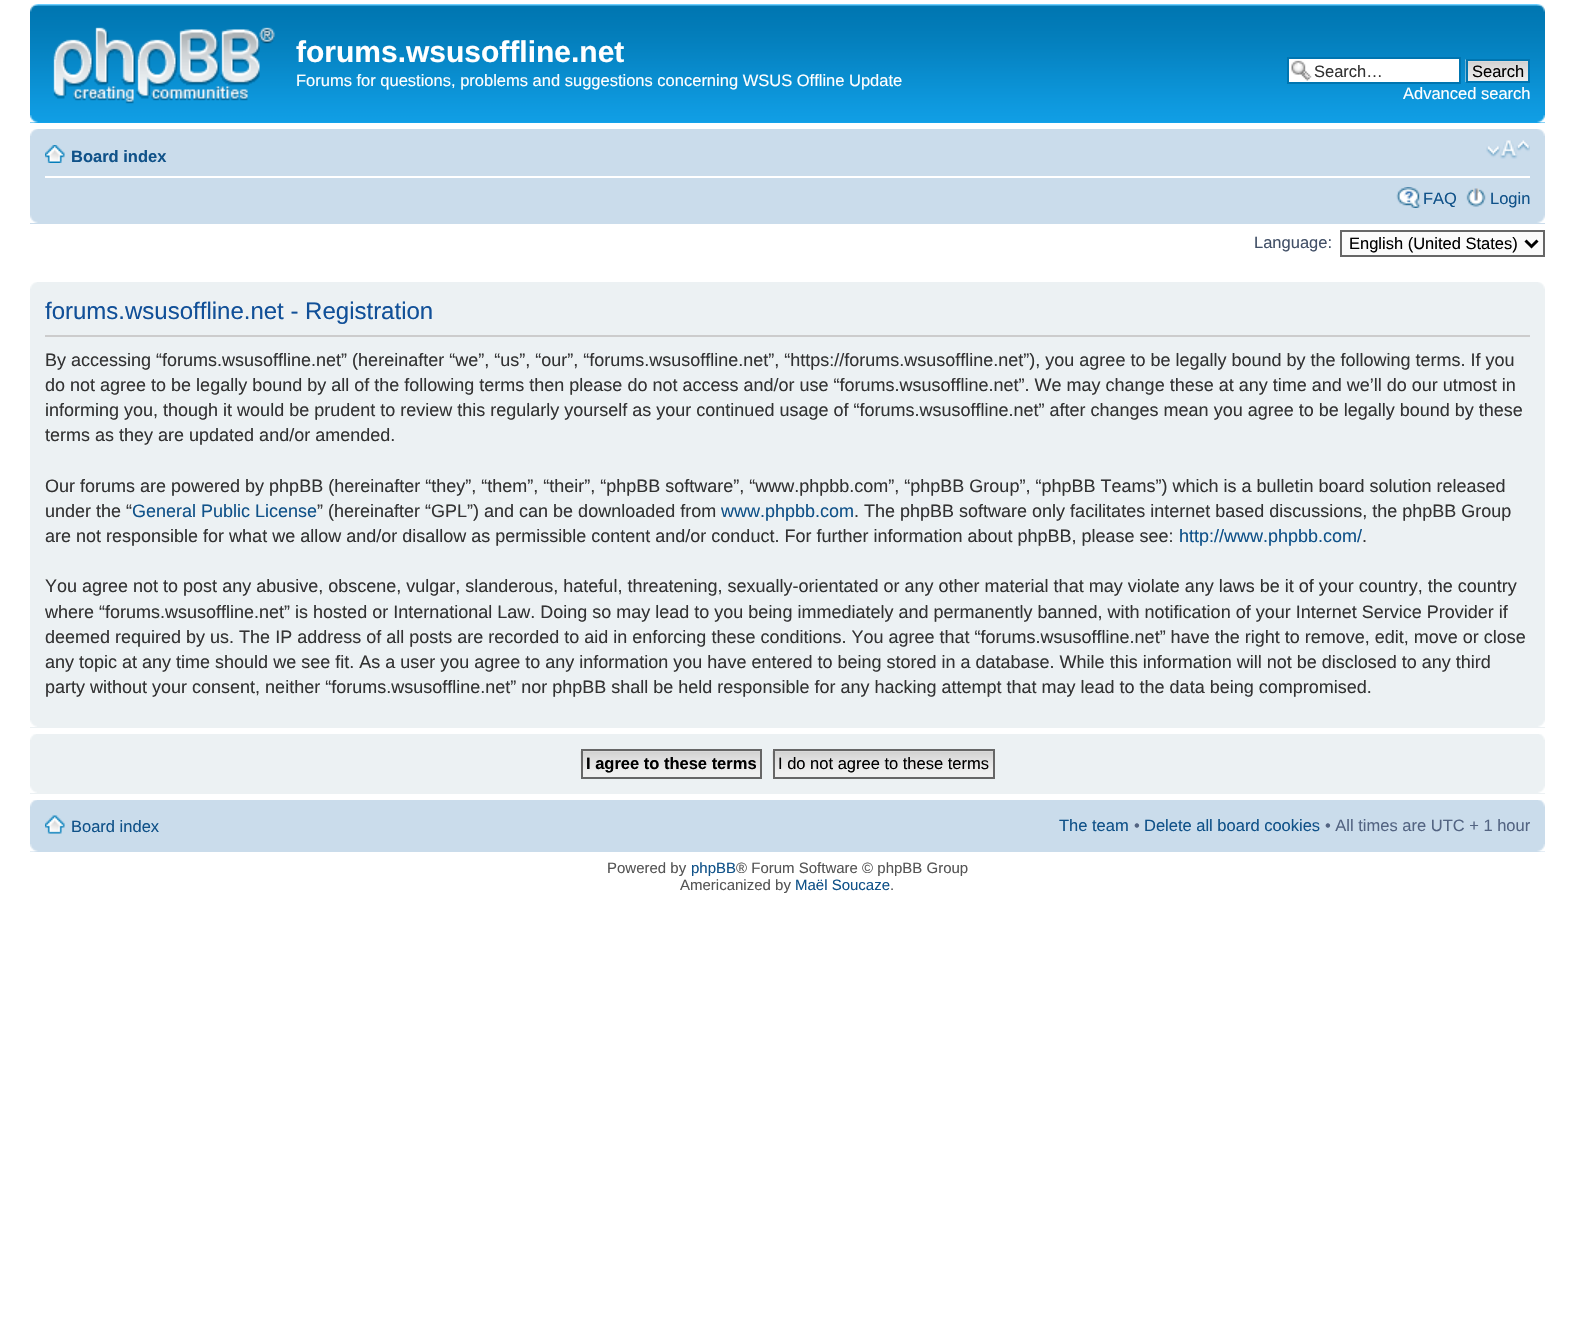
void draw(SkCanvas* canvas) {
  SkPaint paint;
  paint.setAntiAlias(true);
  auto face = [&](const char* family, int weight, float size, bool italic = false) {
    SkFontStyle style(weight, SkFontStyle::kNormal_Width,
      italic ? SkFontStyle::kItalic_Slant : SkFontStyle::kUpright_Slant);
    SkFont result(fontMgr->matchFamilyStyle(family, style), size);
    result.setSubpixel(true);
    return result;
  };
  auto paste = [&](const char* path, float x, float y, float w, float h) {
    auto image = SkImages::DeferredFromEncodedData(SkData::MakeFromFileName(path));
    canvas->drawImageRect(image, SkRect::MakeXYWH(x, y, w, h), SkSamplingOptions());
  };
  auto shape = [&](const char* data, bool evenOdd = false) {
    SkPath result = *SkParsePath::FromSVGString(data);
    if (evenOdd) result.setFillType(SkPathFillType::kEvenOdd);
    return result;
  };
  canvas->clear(0xffffffff);
  paint.setColor(0xff12a3eb);
  canvas->drawRect(SkRect::MakeXYWH(30, 122, 1515, 1), paint);
  paste("img/1.png", 30, 4, 1515, 118);
  paste("img/2.png", 30, 4, 8, 8);
  paste("img/3.png", 1537, 4, 8, 8);
  paste("img/4.png", 53, 27, 222, 77);
  paint.setColor(0xffffffff);
  canvas->drawRect(SkRect::MakeXYWH(1289, 59, 170, 23), paint);
  paste("img/5.png", 1291, 60, 21, 21);
  paint.setStroke(true);
  paint.setStrokeWidth(2);
  paint.setColor(0xff0075b0);
  canvas->drawRect(SkRect::MakeXYWH(1288, 58, 172, 25), paint);
  paste("img/6.png", 1465, 59, 63, 23);
  canvas->drawRect(SkRect::MakeXYWH(1467, 60, 62, 22), paint);
  paste("img/7.png", 30, 115, 8, 8);
  paste("img/8.png", 1537, 115, 8, 8);
  paint.setStroke(false);
  paint.setColor(0xffcadceb);
  canvas->drawRect(SkRect::MakeXYWH(30, 129, 1515, 95), paint);
  paste("img/9.png", 30, 129, 8, 7);
  paste("img/10.png", 1537, 129, 8, 7);
  paint.setColor(0xffffffff);
  canvas->drawRect(SkRect::MakeXYWH(45, 176, 1485, 2), paint);
  paste("img/11.png", 45, 145, 20, 18);
  paste("img/12.png", 1486, 140, 44, 19);
  paste("img/13.png", 1396, 187, 25, 21);
  paste("img/14.png", 1466, 188, 20, 19);
  paste("img/15.png", 30, 215, 8, 8);
  paste("img/16.png", 1537, 215, 8, 8);
  paint.setColor(0xfffafafa);
  canvas->drawRect(SkRect::MakeXYWH(1341, 231, 203, 25), paint);
  paint.setStroke(true);
  paint.setColor(0xff666666);
  canvas->drawRect(SkRect::MakeXYWH(1341, 231, 203, 25), paint);
  paint.setStrokeWidth(3);
  paint.setColor(0xff000000);
  canvas->drawPath(shape("M1525.5 240.5L1531.5 246.5L1537.5 240.5"), paint);
  paint.setStroke(false);
  paint.setColor(0xffecf1f3);
  canvas->drawRect(SkRect::MakeXYWH(30, 282, 1515, 446), paint);
  paste("img/17.png", 30, 282, 7, 7);
  paste("img/18.png", 1538, 282, 7, 7);
  paint.setColor(0xffcccccc);
  canvas->drawRect(SkRect::MakeXYWH(45, 335, 1485, 2), paint);
  paste("img/19.png", 30, 720, 7, 7);
  paste("img/20.png", 1538, 720, 7, 7);
  paint.setColor(0xffecf1f3);
  canvas->drawRect(SkRect::MakeXYWH(30, 734, 1515, 60), paint);
  paste("img/21.png", 30, 734, 6, 6);
  paste("img/22.png", 1539, 734, 6, 6);
  paste("img/23.png", 580, 749, 180, 29);
  paint.setStroke(true);
  paint.setStrokeWidth(2);
  paint.setColor(0xff666666);
  canvas->drawRect(SkRect::MakeXYWH(582, 750, 179, 28), paint);
  paste("img/24.png", 772, 749, 221, 29);
  canvas->drawRect(SkRect::MakeXYWH(774, 750, 220, 28), paint);
  paste("img/19.png", 30, 786, 7, 7);
  paste("img/20.png", 1538, 786, 7, 7);
  paint.setStroke(false);
  paint.setColor(0xffcadceb);
  canvas->drawRect(SkRect::MakeXYWH(30, 800, 1515, 52), paint);
  paste("img/25.png", 30, 800, 7, 7);
  paste("img/26.png", 1538, 800, 7, 7);
  paste("img/27.png", 45, 815, 20, 19);
  paste("img/28.png", 30, 844, 8, 8);
  paste("img/29.png", 1537, 844, 8, 8);
  auto f0 = face("Liberation Sans", 700, 30);
  paint.setColor(0xffffffff);
  canvas->drawString("forums.wsusoffline.net", 296, 62, f0, paint);
  auto f1 = face("Liberation Sans", 400, 16.5f);
  canvas->drawString("Forums for questions, problems and suggestions concerning WSUS Offline Update", 296, 86, f1, paint);
  paint.setColor(0xff333333);
  canvas->drawString("Search…", 1314, 77, f1, paint);
  paint.setColor(0xff000000);
  canvas->drawString("Search", 1472, 77, f1, paint);
  paint.setColor(0xffffffff);
  canvas->drawString("Advanced search", 1403, 99, f1, paint);
  auto f2 = face("Liberation Sans", 700, 16.5f);
  paint.setColor(0xff105289);
  canvas->drawString("Board index", 71, 162, f2, paint);
  canvas->drawString("FAQ", 1423, 204, f1, paint);
  canvas->drawString("Login", 1490, 204, f1, paint);
  paint.setColor(0xff425067);
  canvas->drawString("Language:", 1254, 248, f1, paint);
  paint.setColor(0xff000000);
  canvas->drawString("English (United States)", 1349, 249, f1, paint);
  auto f3 = face("Liberation Sans", 400, 24);
  paint.setColor(0xff115098);
  canvas->drawString("forums.wsusoffline.net - Registration", 45, 319, f3, paint);
  auto f4 = face("Liberation Sans", 400, 18);
  paint.setColor(0xff333333);
  {
    const struct { const char* s; float x, y; } items[] = {
      {"By accessing “forums.wsusoffline.net” (hereinafter “we”, “us”, “our”, “forums.wsusoffline.net”, “https://forums.wsusoffline.net”), you agree to be legally bound by the following terms. If you", 45, 366},
      {"do not agree to be legally bound by all of the following terms then please do not access and/or use “forums.wsusoffline.net”. We may change these at any time and we’ll do our utmost in", 45, 391},
      {"informing you, though it would be prudent to review this regularly yourself as your continued usage of “forums.wsusoffline.net” after changes mean you agree to be legally bound by these", 45, 416},
      {"terms as they are updated and/or amended.", 45, 441},
      {"Our forums are powered by phpBB (hereinafter “they”, “them”, “their”, “phpBB software”, “www.phpbb.com”, “phpBB Group”, “phpBB Teams”) which is a bulletin board solution released", 45, 492},
      {"under the “", 45, 517},
    };
    for (auto [s, x, y] : items) {
      canvas->drawString(s, x, y, f4, paint);
    }
  }
  paint.setColor(0xff105289);
  canvas->drawString("General Public License", 132, 517, f4, paint);
  paint.setColor(0xff333333);
  canvas->drawString("” (hereinafter “GPL”) and can be downloaded from", 317, 517, f4, paint);
  paint.setColor(0xff105289);
  canvas->drawString("www.phpbb.com", 721, 517, f4, paint);
  paint.setColor(0xff333333);
  canvas->drawString(". The phpBB software only facilitates internet based discussions, the phpBB Group", 854, 517, f4, paint);
  canvas->drawString("are not responsible for what we allow and/or disallow as permissible content and/or conduct. For further information about phpBB, please see:", 45, 542, f4, paint);
  paint.setColor(0xff105289);
  canvas->drawString("http://www.phpbb.com/", 1179, 542, f4, paint);
  paint.setColor(0xff333333);
  {
    const struct { const char* s; float x, y; } items[] = {
      {".", 1362, 542},
      {"You agree not to post any abusive, obscene, vulgar, slanderous, hateful, threatening, sexually-orientated or any other material that may violate any laws be it of your country, the country", 45, 592},
      {"where “forums.wsusoffline.net” is hosted or International Law. Doing so may lead to you being immediately and permanently banned, with notification of your Internet Service Provider if", 45, 618},
      {"deemed required by us. The IP address of all posts are recorded to aid in enforcing these conditions. You agree that “forums.wsusoffline.net” have the right to remove, edit, move or close", 45, 643},
      {"any topic at any time should we see fit. As a user you agree to any information you have entered to being stored in a database. While this information will not be disclosed to any third", 45, 668},
      {"party without your consent, neither “forums.wsusoffline.net” nor phpBB shall be held responsible for any hacking attempt that may lead to the data being compromised.", 45, 693},
    };
    for (auto [s, x, y] : items) {
      canvas->drawString(s, x, y, f4, paint);
    }
  }
  paint.setColor(0xff000000);
  canvas->drawString("I agree to these terms", 586, 769, f2, paint);
  canvas->drawString("I do not agree to these terms", 778, 769, f1, paint);
  paint.setColor(0xff105289);
  canvas->drawString("Board index", 71, 832, f1, paint);
  canvas->drawString("The team", 1059, 831, f1, paint);
  paint.setColor(0xff536482);
  canvas->drawString("•", 1134, 831, f1, paint);
  paint.setColor(0xff105289);
  canvas->drawString("Delete all board cookies", 1144, 831, f1, paint);
  paint.setColor(0xff536482);
  canvas->drawString("• All times are UTC + 1 hour", 1325, 831, f1, paint);
  auto f5 = face("Liberation Sans", 400, 15);
  paint.setColor(0xff555555);
  canvas->drawString("Powered by", 607, 873, f5, paint);
  paint.setColor(0xff105289);
  canvas->drawString("phpBB", 691, 873, f5, paint);
  paint.setColor(0xff555555);
  canvas->drawString("® Forum Software © phpBB Group", 736, 873, f5, paint);
  canvas->drawString("Americanized by", 680, 890, f5, paint);
  paint.setColor(0xff105289);
  canvas->drawString("Maël Soucaze", 795, 890, f5, paint);
  paint.setColor(0xff555555);
  canvas->drawString(".", 890, 890, f5, paint);
}
